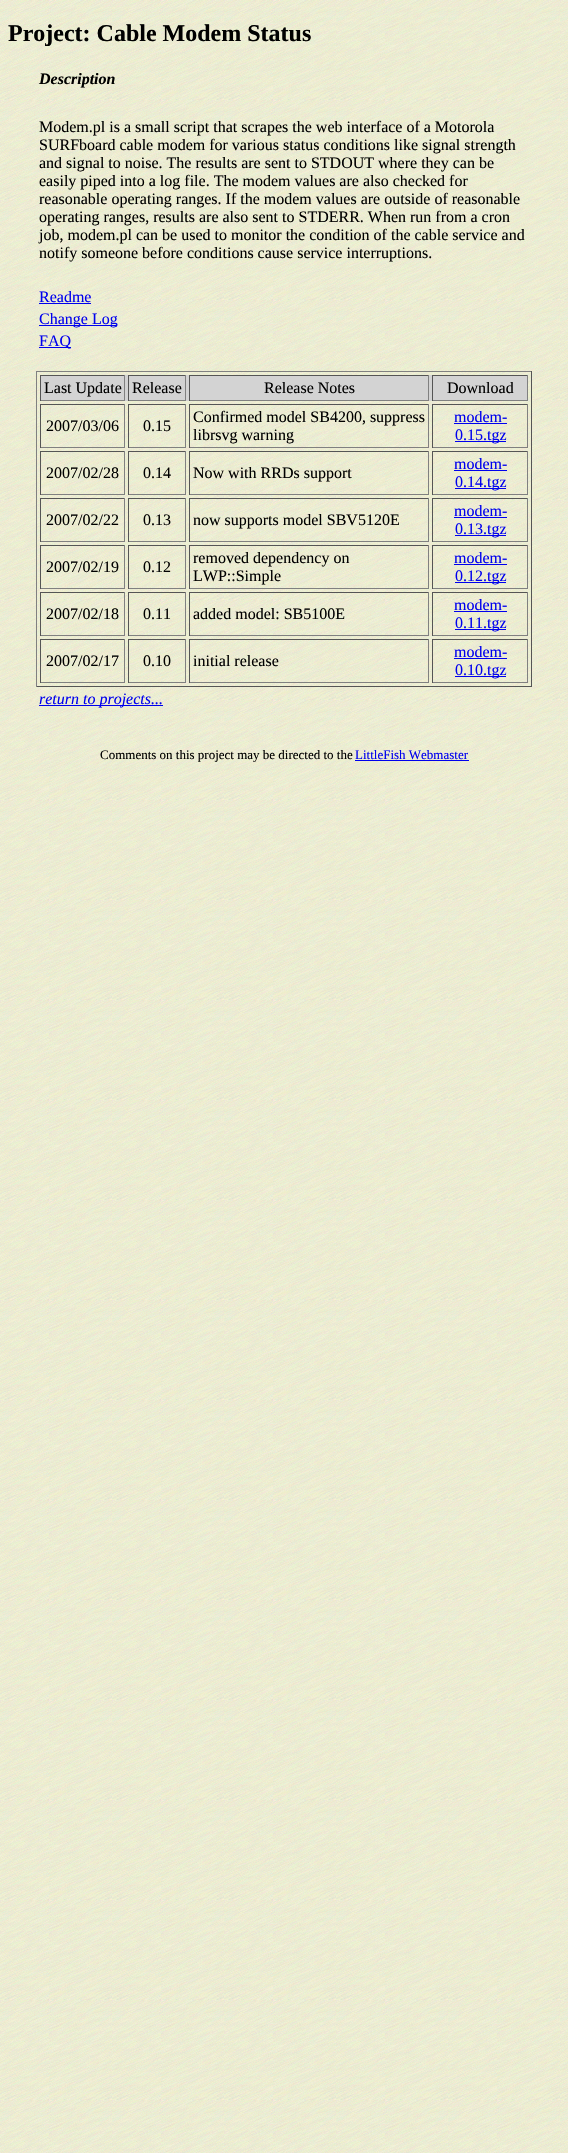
void draw(SkCanvas* canvas) {
  SkPaint paint;
  paint.setAntiAlias(true);
  auto face = [&](const char* family, int weight, float size, bool italic = false) {
    SkFontStyle style(weight, SkFontStyle::kNormal_Width,
      italic ? SkFontStyle::kItalic_Slant : SkFontStyle::kUpright_Slant);
    SkFont result(fontMgr->matchFamilyStyle(family, style), size);
    result.setSubpixel(true);
    return result;
  };
  auto paste = [&](const char* path, float x, float y, float w, float h) {
    auto image = SkImages::DeferredFromEncodedData(SkData::MakeFromFileName(path));
    canvas->drawImageRect(image, SkRect::MakeXYWH(x, y, w, h), SkSamplingOptions());
  };
  canvas->clear(0xffffffff);
  paste("img/1.png", 0, 0, 568, 2153);
  {
    const struct { float x, y, w, h; SkColor color; } items[] = {
      {39, 303, 52, 1, 0xff0000ee},
      {39, 325, 78, 1, 0xff0000ee},
      {39, 347, 32, 1, 0xff0000ee},
      {36, 371, 496, 1, 0xff808080},
      {531, 371, 1, 316, 0xff555555},
      {36, 686, 496, 1, 0xff555555},
      {36, 371, 1, 316, 0xff808080},
      {41, 375, 486, 26, 0xffd3d3d3},
      {40, 375, 85, 1, 0xff555555},
      {124, 375, 1, 26, 0xff808080},
      {40, 400, 85, 1, 0xff808080},
      {40, 375, 1, 26, 0xff555555},
      {128, 375, 58, 1, 0xff555555},
      {185, 375, 1, 26, 0xff808080},
      {128, 400, 58, 1, 0xff808080},
      {128, 375, 1, 26, 0xff555555},
      {189, 375, 240, 1, 0xff555555},
      {428, 375, 1, 26, 0xff808080},
      {189, 400, 240, 1, 0xff808080},
      {189, 375, 1, 26, 0xff555555},
      {432, 375, 96, 1, 0xff555555},
      {527, 375, 1, 26, 0xff808080},
      {432, 400, 96, 1, 0xff808080},
      {432, 375, 1, 26, 0xff555555},
      {40, 404, 85, 1, 0xff555555},
      {124, 404, 1, 44, 0xff808080},
      {40, 447, 85, 1, 0xff808080},
      {40, 404, 1, 44, 0xff555555},
      {128, 404, 58, 1, 0xff555555},
      {185, 404, 1, 44, 0xff808080},
      {128, 447, 58, 1, 0xff808080},
      {128, 404, 1, 44, 0xff555555},
      {189, 404, 240, 1, 0xff555555},
      {428, 404, 1, 44, 0xff808080},
      {189, 447, 240, 1, 0xff808080},
      {189, 404, 1, 44, 0xff555555},
      {432, 404, 96, 1, 0xff555555},
      {527, 404, 1, 44, 0xff808080},
      {432, 447, 96, 1, 0xff808080},
      {432, 404, 1, 44, 0xff555555},
      {454, 423, 53, 1, 0xff0000ee},
      {455, 441, 51, 1, 0xff0000ee},
      {40, 451, 85, 1, 0xff555555},
      {124, 451, 1, 44, 0xff808080},
      {40, 494, 85, 1, 0xff808080},
      {40, 451, 1, 44, 0xff555555},
      {128, 451, 58, 1, 0xff555555},
      {185, 451, 1, 44, 0xff808080},
      {128, 494, 58, 1, 0xff808080},
      {128, 451, 1, 44, 0xff555555},
      {189, 451, 240, 1, 0xff555555},
      {428, 451, 1, 44, 0xff808080},
      {189, 494, 240, 1, 0xff808080},
      {189, 451, 1, 44, 0xff555555},
      {432, 451, 96, 1, 0xff555555},
      {527, 451, 1, 44, 0xff808080},
      {432, 494, 96, 1, 0xff808080},
      {432, 451, 1, 44, 0xff555555},
      {454, 470, 53, 1, 0xff0000ee},
      {455, 488, 51, 1, 0xff0000ee},
      {40, 498, 85, 1, 0xff555555},
      {124, 498, 1, 44, 0xff808080},
      {40, 541, 85, 1, 0xff808080},
      {40, 498, 1, 44, 0xff555555},
      {128, 498, 58, 1, 0xff555555},
      {185, 498, 1, 44, 0xff808080},
      {128, 541, 58, 1, 0xff808080},
      {128, 498, 1, 44, 0xff555555},
      {189, 498, 240, 1, 0xff555555},
      {428, 498, 1, 44, 0xff808080},
      {189, 541, 240, 1, 0xff808080},
      {189, 498, 1, 44, 0xff555555},
      {432, 498, 96, 1, 0xff555555},
      {527, 498, 1, 44, 0xff808080},
      {432, 541, 96, 1, 0xff808080},
      {432, 498, 1, 44, 0xff555555},
      {454, 517, 53, 1, 0xff0000ee},
      {455, 535, 51, 1, 0xff0000ee},
      {40, 545, 85, 1, 0xff555555},
      {124, 545, 1, 44, 0xff808080},
      {40, 588, 85, 1, 0xff808080},
      {40, 545, 1, 44, 0xff555555},
      {128, 545, 58, 1, 0xff555555},
      {185, 545, 1, 44, 0xff808080},
      {128, 588, 58, 1, 0xff808080},
      {128, 545, 1, 44, 0xff555555},
      {189, 545, 240, 1, 0xff555555},
      {428, 545, 1, 44, 0xff808080},
      {189, 588, 240, 1, 0xff808080},
      {189, 545, 1, 44, 0xff555555},
      {432, 545, 96, 1, 0xff555555},
      {527, 545, 1, 44, 0xff808080},
      {432, 588, 96, 1, 0xff808080},
      {432, 545, 1, 44, 0xff555555},
      {454, 564, 53, 1, 0xff0000ee},
      {455, 582, 51, 1, 0xff0000ee},
      {40, 592, 85, 1, 0xff555555},
      {124, 592, 1, 44, 0xff808080},
      {40, 635, 85, 1, 0xff808080},
      {40, 592, 1, 44, 0xff555555},
      {128, 592, 58, 1, 0xff555555},
      {185, 592, 1, 44, 0xff808080},
      {128, 635, 58, 1, 0xff808080},
      {128, 592, 1, 44, 0xff555555},
      {189, 592, 240, 1, 0xff555555},
      {428, 592, 1, 44, 0xff808080},
      {189, 635, 240, 1, 0xff808080},
      {189, 592, 1, 44, 0xff555555},
      {432, 592, 96, 1, 0xff555555},
      {527, 592, 1, 44, 0xff808080},
      {432, 635, 96, 1, 0xff808080},
      {432, 592, 1, 44, 0xff555555},
      {454, 611, 53, 1, 0xff0000ee},
      {455, 629, 51, 1, 0xff0000ee},
      {40, 639, 85, 1, 0xff555555},
      {124, 639, 1, 44, 0xff808080},
      {40, 682, 85, 1, 0xff808080},
      {40, 639, 1, 44, 0xff555555},
      {128, 639, 58, 1, 0xff555555},
      {185, 639, 1, 44, 0xff808080},
      {128, 682, 58, 1, 0xff808080},
      {128, 639, 1, 44, 0xff555555},
      {189, 639, 240, 1, 0xff555555},
      {428, 639, 1, 44, 0xff808080},
      {189, 682, 240, 1, 0xff808080},
      {189, 639, 1, 44, 0xff555555},
      {432, 639, 96, 1, 0xff555555},
      {527, 639, 1, 44, 0xff808080},
      {432, 682, 96, 1, 0xff808080},
      {432, 639, 1, 44, 0xff555555},
      {454, 658, 53, 1, 0xff0000ee},
      {455, 676, 51, 1, 0xff0000ee},
      {39, 705, 124, 1, 0xff0000ee},
      {355, 760, 114, 1, 0xff0000ee},
    };
    for (auto [x, y, w, h, color] : items) {
      paint.setColor(color);
      canvas->drawRect(SkRect::MakeXYWH(x, y, w, h), paint);
    }
  }
  auto f0 = face("Liberation Serif", 700, 24);
  paint.setColor(0xff000000);
  canvas->drawString("Project: Cable Modem Status", 8, 41, f0, paint);
  auto f1 = face("Liberation Serif", 700, 16, true);
  canvas->drawString("Description", 39, 84, f1, paint);
  auto f2 = face("Liberation Serif", 400, 16);
  {
    const struct { const char* s; float x, y; } items[] = {
      {"Modem.pl is a small script that scrapes the web interface of a Motorola", 39, 132},
      {"SURFboard cable modem for various status conditions like signal strength", 39, 150},
      {"and signal to noise. The results are sent to STDOUT where they can be", 39, 168},
      {"easily piped into a log file. The modem values are also checked for", 39, 186},
      {"reasonable operating ranges. If the modem values are outside of reasonable", 39, 204},
      {"operating ranges, results are also sent to STDERR. When run from a cron", 39, 222},
      {"job, modem.pl can be used to monitor the condition of the cable service and", 39, 240},
      {"notify someone before conditions cause service interruptions.", 39, 258},
    };
    for (auto [s, x, y] : items) {
      canvas->drawString(s, x, y, f2, paint);
    }
  }
  paint.setColor(0xff0000ee);
  {
    const struct { const char* s; float x, y; } items[] = {
      {"Readme", 39, 302},
      {"Change Log", 39, 324},
      {"FAQ", 39, 346},
    };
    for (auto [s, x, y] : items) {
      canvas->drawString(s, x, y, f2, paint);
    }
  }
  paint.setColor(0xff000000);
  {
    const struct { const char* s; float x, y; } items[] = {
      {"Last Update", 44, 393},
      {"Release", 132, 393},
      {"Release Notes", 264, 393},
      {"Download", 447, 393},
      {"2007/03/06", 46, 431},
      {"0.15", 143, 431},
      {"Confirmed model SB4200, suppress", 193, 422},
      {"librsvg warning", 193, 440},
    };
    for (auto [s, x, y] : items) {
      canvas->drawString(s, x, y, f2, paint);
    }
  }
  paint.setColor(0xff0000ee);
  canvas->drawString("modem-", 454, 422, f2, paint);
  canvas->drawString("0.15.tgz", 455, 440, f2, paint);
  paint.setColor(0xff000000);
  {
    const struct { const char* s; float x, y; } items[] = {
      {"2007/02/28", 46, 478},
      {"0.14", 143, 478},
      {"Now with RRDs support", 193, 478},
    };
    for (auto [s, x, y] : items) {
      canvas->drawString(s, x, y, f2, paint);
    }
  }
  paint.setColor(0xff0000ee);
  canvas->drawString("modem-", 454, 469, f2, paint);
  canvas->drawString("0.14.tgz", 455, 487, f2, paint);
  paint.setColor(0xff000000);
  {
    const struct { const char* s; float x, y; } items[] = {
      {"2007/02/22", 46, 525},
      {"0.13", 143, 525},
      {"now supports model SBV5120E", 193, 525},
    };
    for (auto [s, x, y] : items) {
      canvas->drawString(s, x, y, f2, paint);
    }
  }
  paint.setColor(0xff0000ee);
  canvas->drawString("modem-", 454, 516, f2, paint);
  canvas->drawString("0.13.tgz", 455, 534, f2, paint);
  paint.setColor(0xff000000);
  {
    const struct { const char* s; float x, y; } items[] = {
      {"2007/02/19", 46, 572},
      {"0.12", 143, 572},
      {"removed dependency on", 193, 563},
      {"LWP::Simple", 193, 581},
    };
    for (auto [s, x, y] : items) {
      canvas->drawString(s, x, y, f2, paint);
    }
  }
  paint.setColor(0xff0000ee);
  canvas->drawString("modem-", 454, 563, f2, paint);
  canvas->drawString("0.12.tgz", 455, 581, f2, paint);
  paint.setColor(0xff000000);
  {
    const struct { const char* s; float x, y; } items[] = {
      {"2007/02/18", 46, 619},
      {"0.11", 143, 619},
      {"added model: SB5100E", 193, 619},
    };
    for (auto [s, x, y] : items) {
      canvas->drawString(s, x, y, f2, paint);
    }
  }
  paint.setColor(0xff0000ee);
  canvas->drawString("modem-", 454, 610, f2, paint);
  canvas->drawString("0.11.tgz", 455, 628, f2, paint);
  paint.setColor(0xff000000);
  {
    const struct { const char* s; float x, y; } items[] = {
      {"2007/02/17", 46, 666},
      {"0.10", 143, 666},
      {"initial release", 193, 666},
    };
    for (auto [s, x, y] : items) {
      canvas->drawString(s, x, y, f2, paint);
    }
  }
  paint.setColor(0xff0000ee);
  canvas->drawString("modem-", 454, 657, f2, paint);
  canvas->drawString("0.10.tgz", 455, 675, f2, paint);
  auto f3 = face("Liberation Serif", 400, 16, true);
  canvas->drawString("return to projects...", 39, 704, f3, paint);
  auto f4 = face("Liberation Serif", 400, 13);
  paint.setColor(0xff000000);
  canvas->drawString("Comments on this project may be directed to the", 100, 759, f4, paint);
  paint.setColor(0xff0000ee);
  canvas->drawString("LittleFish Webmaster", 355, 759, f4, paint);
}
